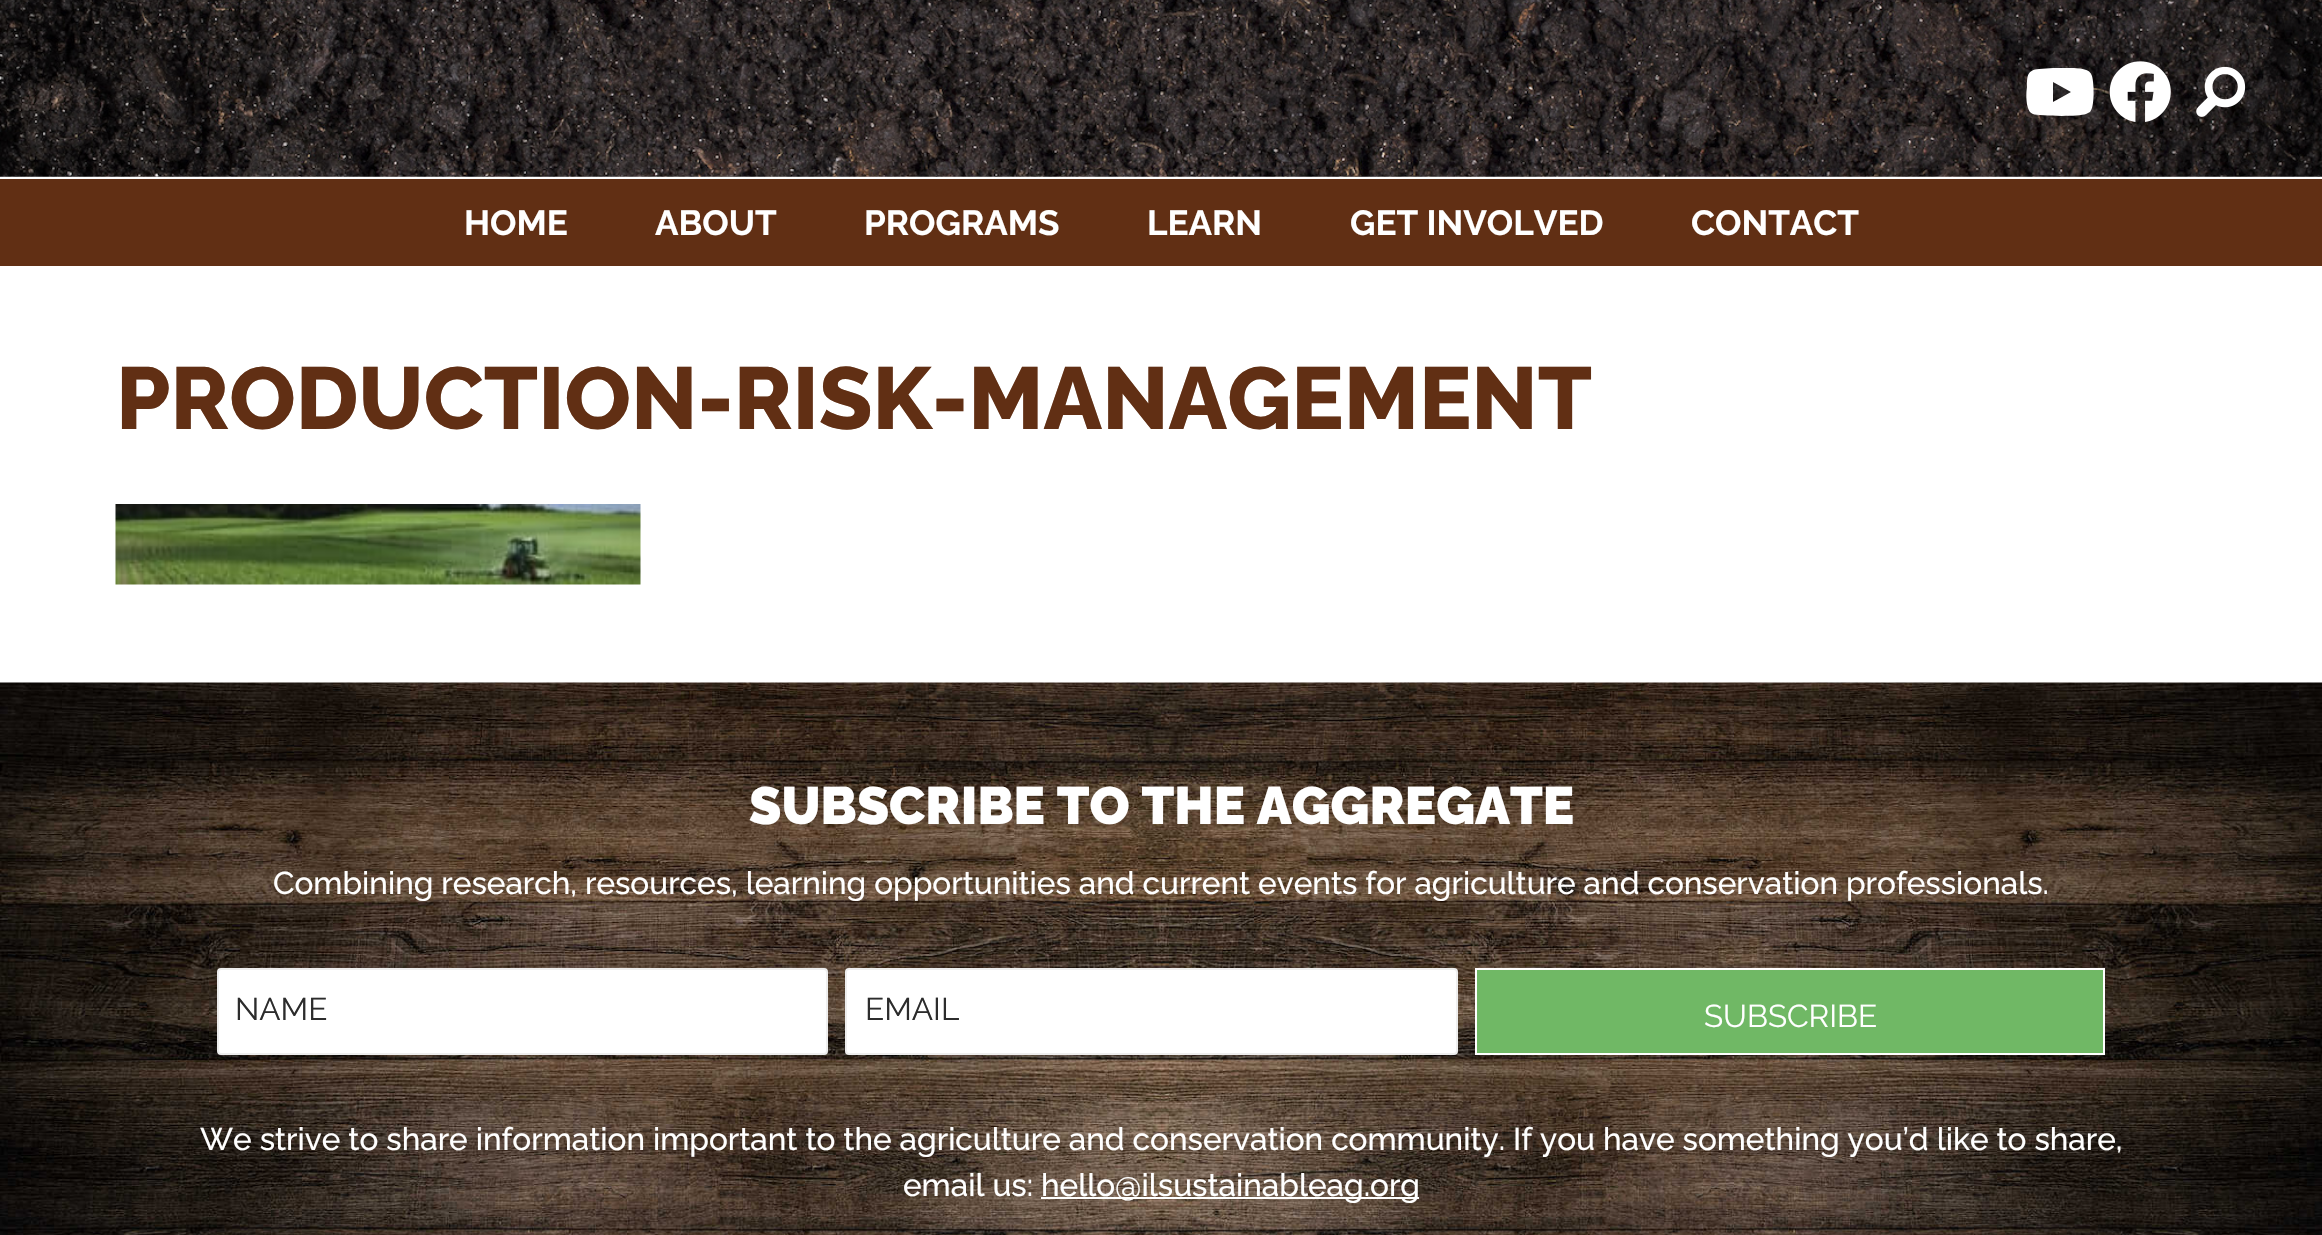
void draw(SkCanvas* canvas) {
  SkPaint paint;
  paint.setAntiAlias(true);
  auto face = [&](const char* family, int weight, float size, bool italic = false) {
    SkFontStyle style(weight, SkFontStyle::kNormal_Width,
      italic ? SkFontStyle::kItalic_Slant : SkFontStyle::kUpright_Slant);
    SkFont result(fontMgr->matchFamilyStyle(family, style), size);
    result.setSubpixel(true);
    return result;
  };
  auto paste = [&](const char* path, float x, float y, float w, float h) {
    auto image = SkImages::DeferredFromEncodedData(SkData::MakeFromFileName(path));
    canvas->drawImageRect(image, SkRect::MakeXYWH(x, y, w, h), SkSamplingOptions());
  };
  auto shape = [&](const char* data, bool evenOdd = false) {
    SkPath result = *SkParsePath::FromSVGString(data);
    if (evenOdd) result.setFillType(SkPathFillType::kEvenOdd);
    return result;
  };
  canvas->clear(0xffffffff);
  paste("img/1.png", 0, 0, 2322, 177);
  paint.setColor(0xffffffff);
  canvas->drawPath(shape("M2092 76C2094 83 2095 107 2090 112L2086 114C2078 117 2038 116 2033 114C2030 113 2029 111 2028 108C2026 102 2026 93 2027 87C2027 76 2027 70 2039 69L2053 68H2074C2080 69 2090 68 2092 76ZM2053 102L2071 92L2053 82Z"), paint);
  paste("img/2.png", 2109, 61, 62, 61);
  paste("img/3.png", 2196, 66, 50, 51);
  paint.setColor(0xff612f14);
  canvas->drawRect(SkRect::MakeXYWH(0, 179, 2322, 87), paint);
  paste("img/4.png", 115, 504, 526, 81);
  paste("img/5.png", 0, 682, 2322, 553);
  paint.setColor(0xffffffff);
  canvas->drawRoundRect(SkRect::MakeXYWH(218, 969, 609, 85), 3, 3, paint);
  paint.setStroke(true);
  paint.setStrokeWidth(2);
  paint.setColor(0xffeeeeee);
  canvas->drawRoundRect(SkRect::MakeXYWH(218, 969, 609, 85), 3, 3, paint);
  paint.setStroke(false);
  paint.setColor(0xffffffff);
  canvas->drawRoundRect(SkRect::MakeXYWH(846, 969, 611, 85), 3, 3, paint);
  paint.setStroke(true);
  paint.setColor(0xffeeeeee);
  canvas->drawRoundRect(SkRect::MakeXYWH(846, 969, 611, 85), 3, 3, paint);
  paint.setStroke(false);
  paint.setColor(0xff70b865);
  canvas->drawRect(SkRect::MakeXYWH(1476, 969, 628, 85), paint);
  paint.setStroke(true);
  paint.setColor(0xffffffff);
  canvas->drawRect(SkRect::MakeXYWH(1476, 969, 628, 85), paint);
  paint.setStroke(false);
  canvas->drawRect(SkRect::MakeXYWH(1041, 1197, 378, 2), paint);
  auto f0 = face("Raleway", 700, 35);
  {
    const struct { const char* s; float x, y; } items[] = {
      {"HOME", 464, 235},
      {"ABOUT", 655, 235},
      {"PROGRAMS", 864, 235},
      {"LEARN", 1147, 235},
      {"GET INVOLVED", 1350, 235},
      {"CONTACT", 1691, 235},
    };
    for (auto [s, x, y] : items) {
      canvas->drawString(s, x, y, f0, paint);
    }
  }
  auto f1 = face("Raleway", 800, 87.5f);
  paint.setColor(0xff612f14);
  canvas->drawString("PRODUCTION-RISK-MANAGEMENT", 116, 429, f1, paint);
  auto f2 = face("Raleway", 900, 52.5f);
  paint.setColor(0xffffffff);
  canvas->drawString("SUBSCRIBE TO THE AGGREGATE", 749, 824, f2, paint);
  auto f3 = face("Raleway", 500, 31.5f);
  canvas->drawString("Combining research, resources, learning opportunities and current events for agriculture and conservation professionals.", 273, 894, f3, paint);
  auto f4 = face("Raleway", 400, 31.5f);
  paint.setColor(0xff2c2c2c);
  canvas->drawString("NAME", 235, 1020, f4, paint);
  canvas->drawString("EMAIL", 865, 1020, f4, paint);
  paint.setColor(0xffffffff);
  canvas->drawString("SUBSCRIBE", 1704, 1027, f4, paint);
  {
    const struct { const char* s; float x, y; } items[] = {
      {"We strive to share information important to the agriculture and conservation community. If you have something you’d like to share,", 200, 1150},
      {"email us:", 903, 1196},
      {"hello@ilsustainableag.org", 1041, 1196},
    };
    for (auto [s, x, y] : items) {
      canvas->drawString(s, x, y, f3, paint);
    }
  }
}
